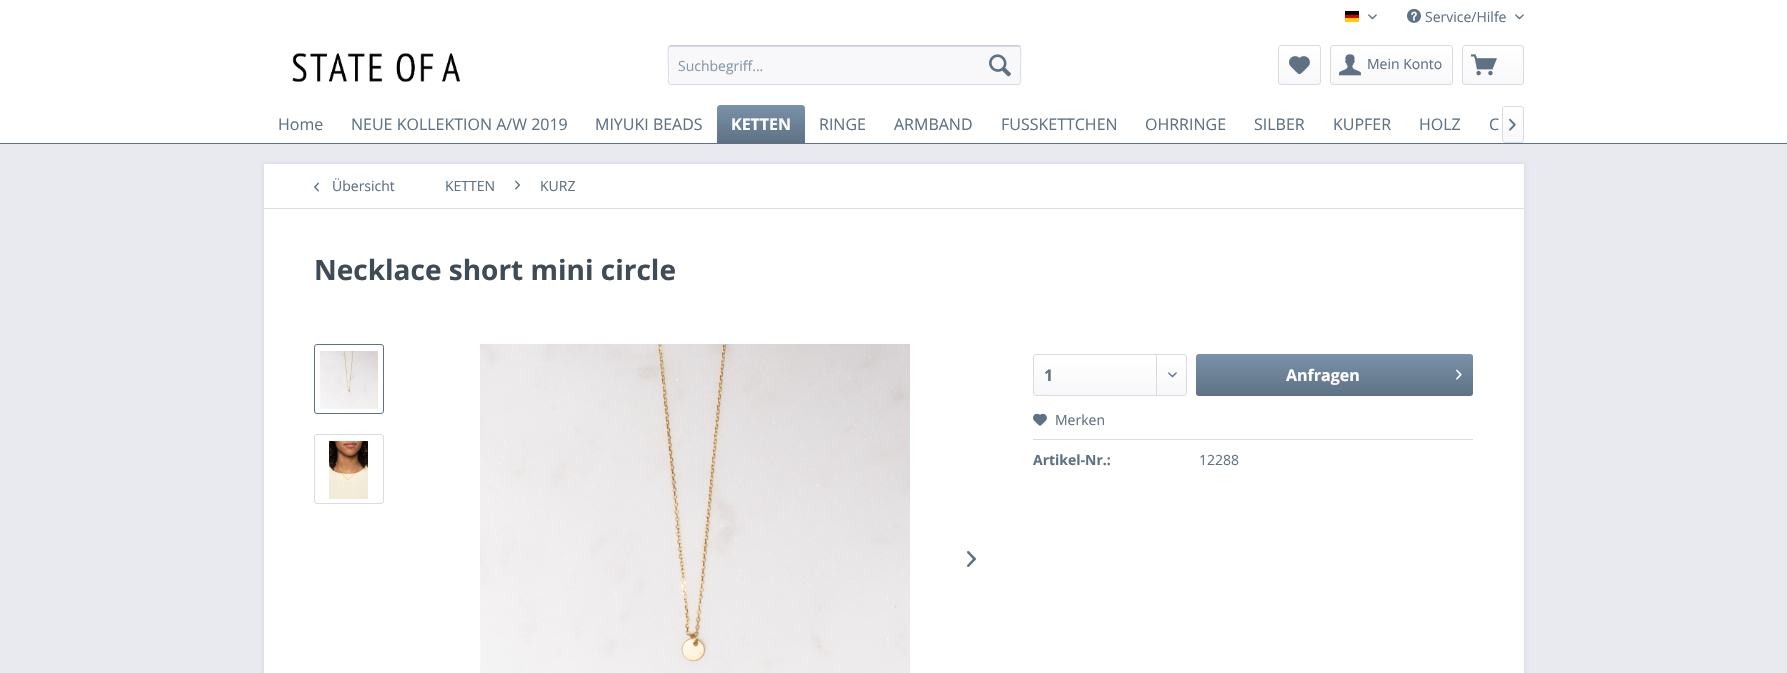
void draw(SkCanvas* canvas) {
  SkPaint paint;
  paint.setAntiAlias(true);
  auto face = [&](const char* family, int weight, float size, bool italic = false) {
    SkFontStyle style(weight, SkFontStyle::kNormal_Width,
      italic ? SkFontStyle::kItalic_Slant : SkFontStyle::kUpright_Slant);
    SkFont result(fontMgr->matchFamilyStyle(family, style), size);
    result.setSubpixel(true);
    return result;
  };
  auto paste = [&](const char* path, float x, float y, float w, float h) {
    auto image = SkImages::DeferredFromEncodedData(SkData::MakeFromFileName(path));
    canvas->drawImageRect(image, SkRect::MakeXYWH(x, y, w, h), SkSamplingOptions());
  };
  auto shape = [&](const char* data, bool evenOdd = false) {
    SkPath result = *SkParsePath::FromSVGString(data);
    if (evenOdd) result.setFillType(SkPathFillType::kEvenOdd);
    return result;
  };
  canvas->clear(0xffe9e9f0);
  {
    const struct { float x, y, w, h; SkColor color; } items[] = {
      {0, 0, 1787, 143, 0xffffffff},
      {1345, 11, 14, 4, 0xff000000},
      {1345, 15, 14, 3, 0xffdd0000},
      {1345, 18, 14, 4, 0xffffce00},
    };
    for (auto [x, y, w, h, color] : items) {
      paint.setColor(color);
      canvas->drawRect(SkRect::MakeXYWH(x, y, w, h), paint);
    }
  }
  paste("img/1.png", 1368, 14, 9, 6);
  paste("img/2.png", 1407, 8, 14, 15);
  paste("img/1.png", 1515, 14, 9, 6);
  paste("img/3.png", 292, 53, 168, 29);
  paint.setColor(0xfff8f8fa);
  canvas->drawRoundRect(SkRect::MakeXYWH(668, 45, 353, 40), 3, 3, paint);
  paint.setColor(0xffdadae5);
  canvas->drawPath(shape("M671 47H1018C1019 47 1020 48 1020 49C1020 48 1020 46 1018 46H671C669 46 669 48 669 49C669 48 670 47 671 47Z"), paint);
  paint.setStroke(true);
  paint.setStrokeWidth(1);
  paint.setColor(0xffcbcbdb);
  canvas->drawPath(shape("M669 46L671 45.5H1018L1020 46"), paint);
  paint.setColor(0xffdadae5);
  canvas->drawPath(shape("M1020 46C1021.5 48 1020.5 67 1020.5 70.5V76.5C1020.5 78 1022 84.5 1018 84.5H671C667 84.5 668.5 78 668.5 76.5V70.5C668.5 67 667.5 48 669 46"), paint);
  paste("img/4.png", 989, 54, 22, 23);
  paint.setStroke(false);
  {
    const SkColor colors[] = {0xffffffff, 0xfff8f8fa};
    const float stops[] = {0, 1};
    const SkPoint ends[] = {{1300, 46}, {1300, 84}};
    paint.setShader(SkGradientShader::MakeLinear(ends, colors, stops, 2, SkTileMode::kClamp));
    paint.setAlpha(255);
  }
  canvas->drawRoundRect(SkRect::MakeXYWH(1279, 46, 41, 38), 2, 2, paint);
  paint.setStroke(true);
  paint.setShader(nullptr);
  paint.setColor(0xffdadae5);
  canvas->drawRoundRect(SkRect::MakeXYWH(1278.5f, 45.5f, 42, 39), 2.5f, 2.5f, paint);
  paste("img/5.png", 1289, 56, 21, 19);
  paint.setStroke(false);
  {
    const SkColor colors[] = {0xffffffff, 0xfff8f8fa};
    const float stops[] = {0, 1};
    const SkPoint ends[] = {{1392, 46}, {1392, 84}};
    paint.setShader(SkGradientShader::MakeLinear(ends, colors, stops, 2, SkTileMode::kClamp));
    paint.setAlpha(255);
  }
  canvas->drawRoundRect(SkRect::MakeXYWH(1331, 46, 121, 38), 2, 2, paint);
  paint.setStroke(true);
  paint.setShader(nullptr);
  paint.setColor(0xffdadae5);
  canvas->drawRoundRect(SkRect::MakeXYWH(1330.5f, 45.5f, 122, 39), 2.5f, 2.5f, paint);
  paste("img/6.png", 1339, 54, 22, 22);
  paint.setStroke(false);
  {
    const SkColor colors[] = {0xffffffff, 0xfff8f8fa};
    const float stops[] = {0, 1};
    const SkPoint ends[] = {{1493, 46}, {1493, 84}};
    paint.setShader(SkGradientShader::MakeLinear(ends, colors, stops, 2, SkTileMode::kClamp));
    paint.setAlpha(255);
  }
  canvas->drawRoundRect(SkRect::MakeXYWH(1463, 46, 60, 38), 2, 2, paint);
  paint.setStroke(true);
  paint.setShader(nullptr);
  paint.setColor(0xffdadae5);
  canvas->drawRoundRect(SkRect::MakeXYWH(1462.5f, 45.5f, 61, 39), 2.5f, 2.5f, paint);
  paste("img/7.png", 1471, 54, 26, 22);
  paint.setStroke(false);
  paint.setColor(0xff5f7285);
  canvas->drawRect(SkRect::MakeXYWH(0, 143, 1787, 1), paint);
  {
    const SkColor colors[] = {0xff7991a9, 0xff5f7285};
    const float stops[] = {0, 1};
    const SkPoint ends[] = {{761, 105}, {761, 143}};
    paint.setShader(SkGradientShader::MakeLinear(ends, colors, stops, 2, SkTileMode::kClamp));
    paint.setAlpha(255);
  }
  canvas->drawPath(shape("M720 105H802C803.5 105 805 106.5 805 108V143H717V108C717 106.5 718.5 105 720 105Z"), paint);
  {
    const SkColor colors[] = {0xffffffff, 0xfff8f8fa};
    const float stops[] = {0, 1};
    const SkPoint ends[] = {{1513, 107}, {1513, 142}};
    paint.setShader(SkGradientShader::MakeLinear(ends, colors, stops, 2, SkTileMode::kClamp));
    paint.setAlpha(255);
  }
  canvas->drawRoundRect(SkRect::MakeXYWH(1503, 107, 20, 35), 2, 2, paint);
  paint.setStroke(true);
  paint.setShader(nullptr);
  paint.setColor(0xffdadae5);
  canvas->drawRoundRect(SkRect::MakeXYWH(1502.5f, 106.5f, 21, 36), 2.5f, 2.5f, paint);
  paste("img/8.png", 1509, 118, 7, 13);
  paint.setStroke(false);
  paint.setMaskFilter(SkMaskFilter::MakeBlur(kNormal_SkBlurStyle, 2));
  canvas->drawRect(SkRect::MakeXYWH(263, 163, 1262, 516), paint);
  paint.setMaskFilter(nullptr);
  paint.setColor(0xffffffff);
  canvas->drawRect(SkRect::MakeXYWH(264, 164, 1260, 509), paint);
  paint.setColor(0xffdadae5);
  canvas->drawRect(SkRect::MakeXYWH(264, 208, 1260, 1), paint);
  paste("img/9.png", 314, 182, 5, 10);
  paste("img/10.png", 515, 180, 5, 10);
  paint.setStroke(true);
  paint.setColor(0xff5f7285);
  canvas->drawRoundRect(SkRect::MakeXYWH(314.5f, 344.5f, 69, 69), 2.5f, 2.5f, paint);
  paste("img/11.png", 320, 351, 58, 58);
  paint.setColor(0xffdadae5);
  canvas->drawRoundRect(SkRect::MakeXYWH(314.5f, 434.5f, 69, 69), 2.5f, 2.5f, paint);
  paste("img/12.png", 329, 441, 39, 58);
  paste("img/13.png", 480, 344, 430, 329);
  paste("img/14.png", 967, 551, 9, 16);
  paint.setStroke(false);
  {
    const SkColor colors[] = {0xffffffff, 0xfff8f8fa};
    const float stops[] = {0, 1};
    const SkPoint ends[] = {{1110, 355}, {1110, 395}};
    paint.setShader(SkGradientShader::MakeLinear(ends, colors, stops, 2, SkTileMode::kClamp));
    paint.setAlpha(255);
  }
  canvas->drawRoundRect(SkRect::MakeXYWH(1034, 355, 152, 40), 2, 2, paint);
  paint.setStroke(true);
  paint.setShader(nullptr);
  paint.setColor(0xffdadae5);
  canvas->drawRoundRect(SkRect::MakeXYWH(1033.5f, 354.5f, 153, 41), 2.5f, 2.5f, paint);
  paint.setStroke(false);
  canvas->drawRect(SkRect::MakeXYWH(1156, 355, 1, 40), paint);
  paste("img/15.png", 1168, 372, 9, 6);
  {
    const SkColor colors[] = {0xff7991a9, 0xff5f7285};
    const float stops[] = {0, 1};
    const SkPoint ends[] = {{1335, 354}, {1335, 396}};
    paint.setShader(SkGradientShader::MakeLinear(ends, colors, stops, 2, SkTileMode::kClamp));
    paint.setAlpha(255);
  }
  canvas->drawRoundRect(SkRect::MakeXYWH(1196, 354, 277, 42), 3, 3, paint);
  paste("img/16.png", 1456, 369, 6, 11);
  paint.setShader(nullptr);
  paint.setColor(0xffdadae5);
  canvas->drawRect(SkRect::MakeXYWH(1033, 439, 440, 1), paint);
  paste("img/17.png", 1033, 413, 14, 13);
  auto f0 = face("Open Sans", 400, 14);
  paint.setColor(0xff5f7285);
  canvas->drawString("Service/Hilfe", 1425, 22, f0, paint);
  paint.setColor(0xff8798a9);
  canvas->drawString("Suchbegriff...", 678, 71, f0, paint);
  paint.setColor(0xff5f7285);
  canvas->drawString("Mein Konto", 1367, 69, f0, paint);
  auto f1 = face("Open Sans", 400, 16);
  {
    const struct { const char* s; float x, y; } items[] = {
      {"Home", 278, 130},
      {"NEUE KOLLEKTION A/W 2019", 351, 130},
      {"MIYUKI BEADS", 595, 130},
    };
    for (auto [s, x, y] : items) {
      canvas->drawString(s, x, y, f1, paint);
    }
  }
  auto f2 = face("Open Sans", 700, 16);
  paint.setColor(0xffffffff);
  canvas->drawString("KETTEN", 731, 130, f2, paint);
  paint.setColor(0xff5f7285);
  {
    const struct { const char* s; float x, y; } items[] = {
      {"RINGE", 819, 130},
      {"ARMBAND", 894, 130},
      {"FUSSKETTCHEN", 1001, 130},
      {"OHRRINGE", 1145, 130},
      {"SILBER", 1254, 130},
      {"KUPFER", 1333, 130},
      {"HOLZ", 1419, 130},
      {"C", 1489, 130},
    };
    for (auto [s, x, y] : items) {
      canvas->drawString(s, x, y, f1, paint);
    }
  }
  {
    const struct { const char* s; float x, y; } items[] = {
      {"Übersicht", 332, 191},
      {"KETTEN", 445, 191},
      {"KURZ", 540, 191},
    };
    for (auto [s, x, y] : items) {
      canvas->drawString(s, x, y, f0, paint);
    }
  }
  auto f3 = face("Open Sans", 700, 28);
  paint.setColor(0xff3f4c58);
  canvas->drawString("Necklace short mini circle", 314, 280, f3, paint);
  paint.setColor(0xff5f7285);
  canvas->drawString("1", 1044, 381, f2, paint);
  paint.setColor(0xffffffff);
  canvas->drawString("Anfragen", 1286, 381, f2, paint);
  paint.setColor(0xff5f7285);
  canvas->drawString("Merken", 1055, 425, f0, paint);
  auto f4 = face("Open Sans", 700, 14);
  canvas->drawString("Artikel-Nr.:", 1033, 465, f4, paint);
  canvas->drawString("12288", 1199, 465, f0, paint);
}
